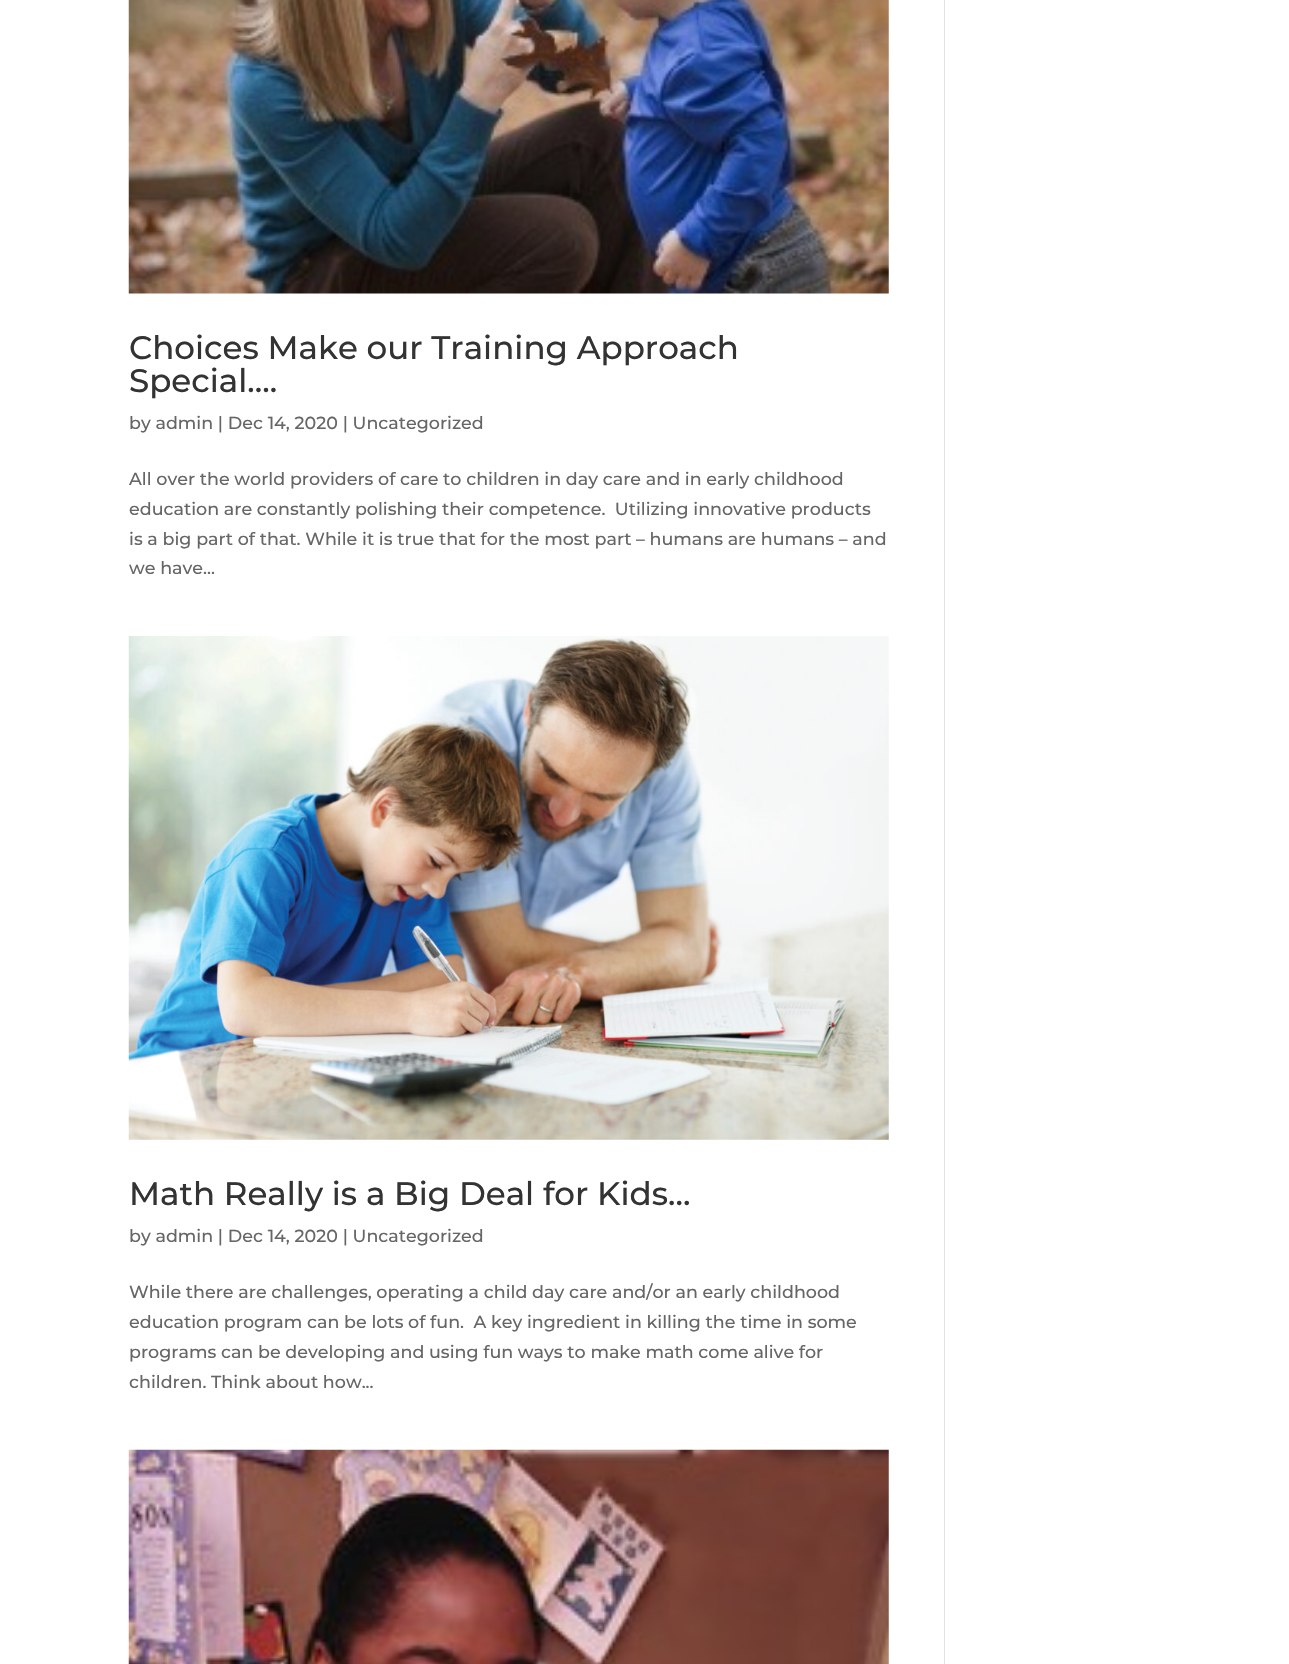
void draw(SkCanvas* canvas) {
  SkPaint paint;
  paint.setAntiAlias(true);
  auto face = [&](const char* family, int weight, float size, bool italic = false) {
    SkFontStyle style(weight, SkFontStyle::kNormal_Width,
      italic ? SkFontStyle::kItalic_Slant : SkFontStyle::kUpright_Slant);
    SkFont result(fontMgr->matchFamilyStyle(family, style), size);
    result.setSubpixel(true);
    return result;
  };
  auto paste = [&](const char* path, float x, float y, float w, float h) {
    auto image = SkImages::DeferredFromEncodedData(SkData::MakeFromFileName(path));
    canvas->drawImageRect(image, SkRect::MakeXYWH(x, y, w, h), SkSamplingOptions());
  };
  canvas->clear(0xffffffff);
  paste("img/1.png", 128, 0, 761, 294);
  paste("img/2.png", 128, 636, 761, 504);
  paste("img/3.png", 128, 1449, 761, 215);
  paint.setColor(0xffe2e2e2);
  canvas->drawRect(SkRect::MakeXYWH(944, 0, 1, 1664), paint);
  auto f0 = face("Montserrat", 100, 32.5f);
  paint.setColor(0xff333333);
  canvas->drawString("Choices Make our Training Approach", 129, 359, f0, paint);
  canvas->drawString("Special….", 129, 392, f0, paint);
  auto f1 = face("Montserrat", 100, 17.5f);
  paint.setColor(0xff666666);
  {
    const struct { const char* s; float x, y; } items[] = {
      {"by admin | Dec 14, 2020 | Uncategorized", 129, 429},
      {"All over the world providers of care to children in day care and in early childhood", 129, 485},
      {"education are constantly polishing their competence.  Utilizing innovative products", 129, 515},
      {"is a big part of that. While it is true that for the most part – humans are humans – and", 129, 545},
      {"we have...", 129, 574},
    };
    for (auto [s, x, y] : items) {
      canvas->drawString(s, x, y, f1, paint);
    }
  }
  paint.setColor(0xff333333);
  canvas->drawString("Math Really is a Big Deal for Kids…", 129, 1205, f0, paint);
  paint.setColor(0xff666666);
  {
    const struct { const char* s; float x, y; } items[] = {
      {"by admin | Dec 14, 2020 | Uncategorized", 129, 1242},
      {"While there are challenges, operating a child day care and/or an early childhood", 129, 1298},
      {"education program can be lots of fun.  A key ingredient in killing the time in some", 129, 1328},
      {"programs can be developing and using fun ways to make math come alive for", 129, 1358},
      {"children. Think about how...", 129, 1388},
    };
    for (auto [s, x, y] : items) {
      canvas->drawString(s, x, y, f1, paint);
    }
  }
}
